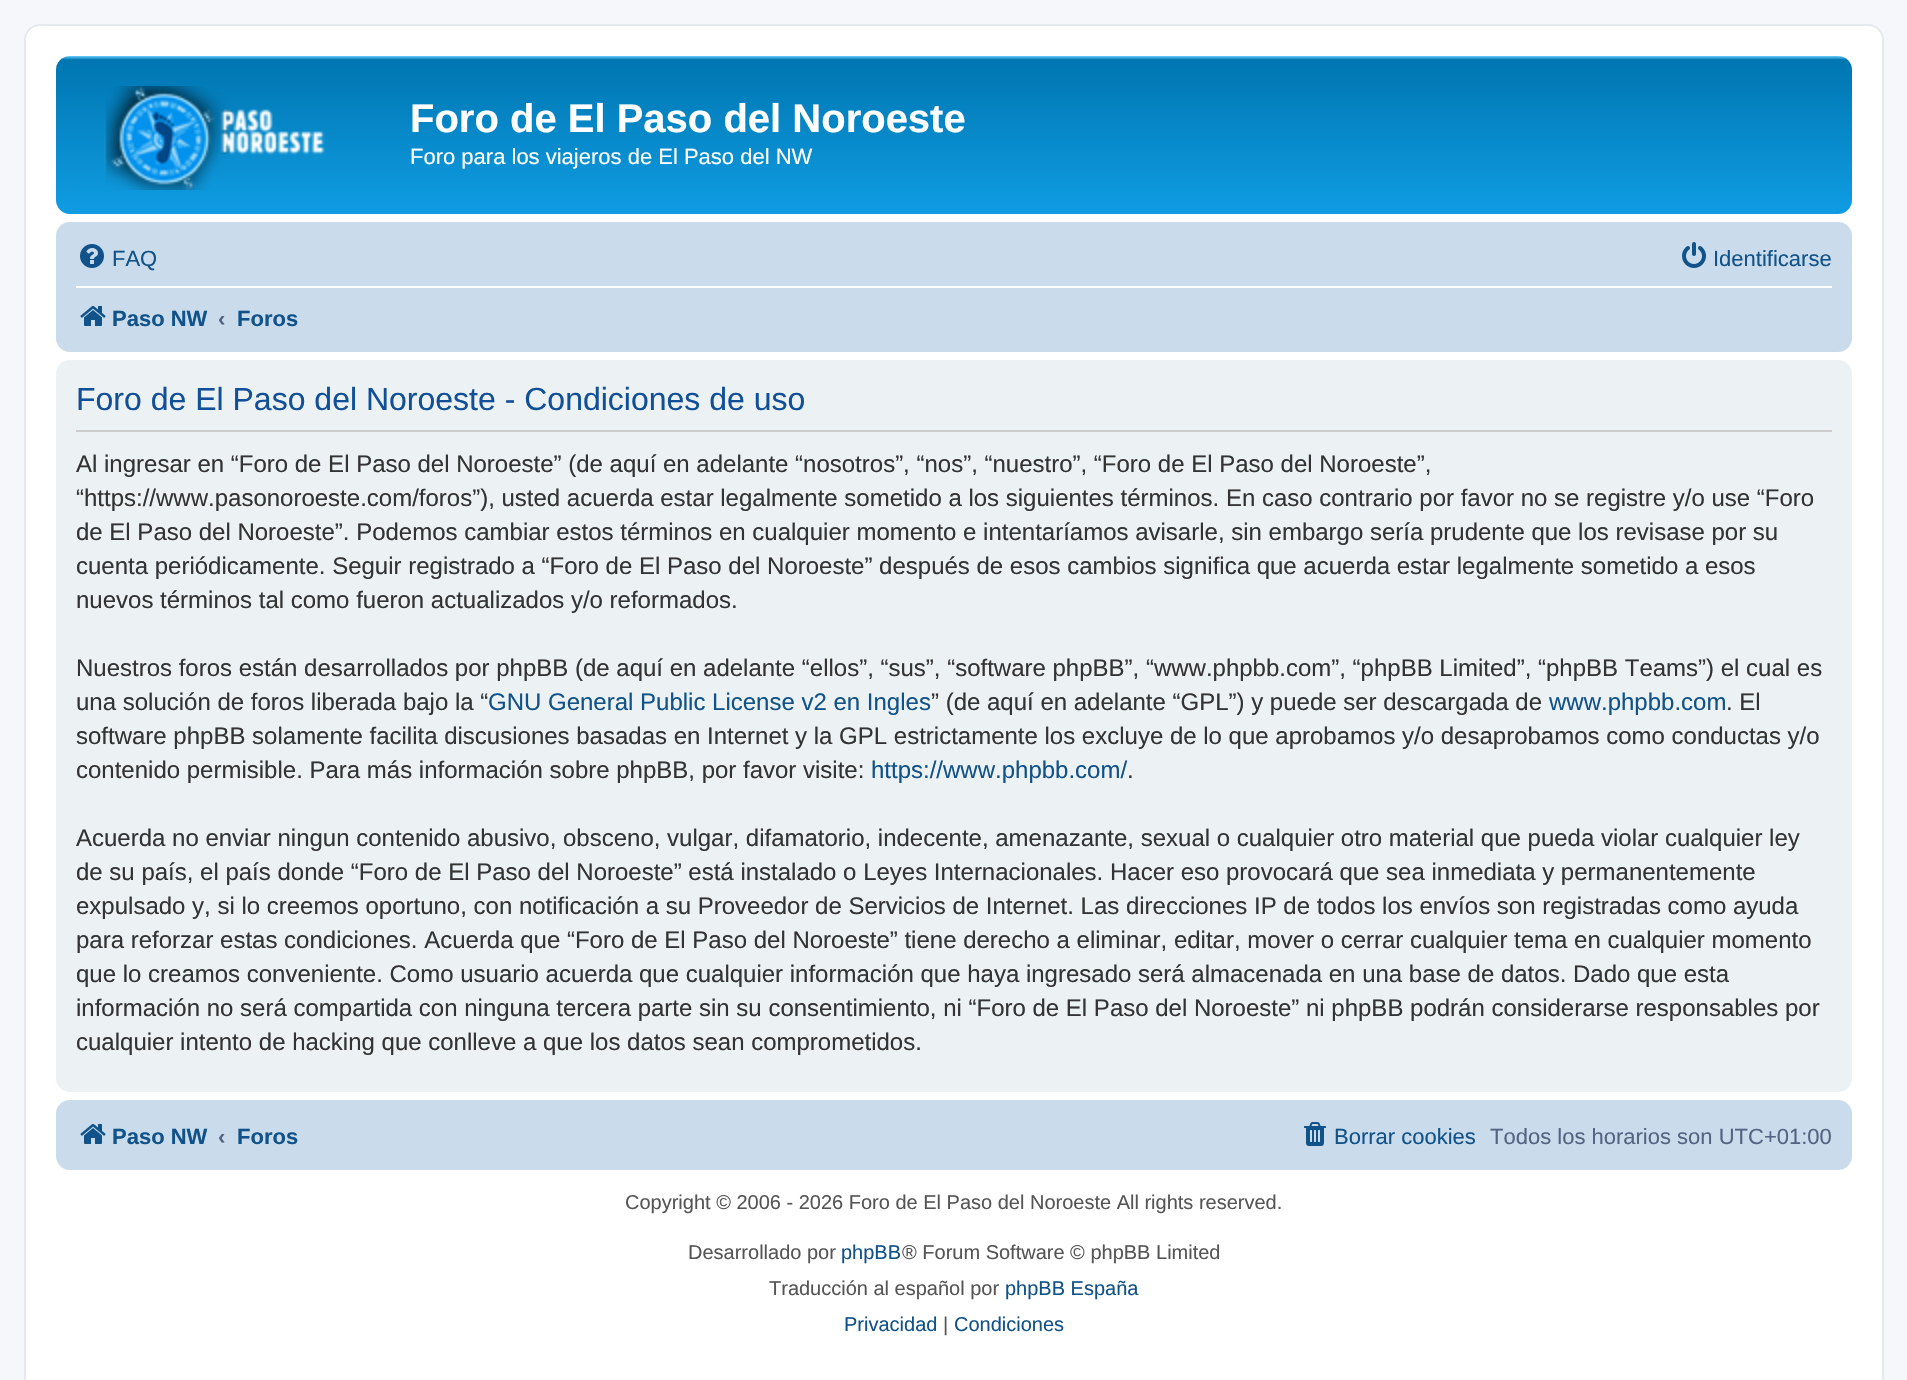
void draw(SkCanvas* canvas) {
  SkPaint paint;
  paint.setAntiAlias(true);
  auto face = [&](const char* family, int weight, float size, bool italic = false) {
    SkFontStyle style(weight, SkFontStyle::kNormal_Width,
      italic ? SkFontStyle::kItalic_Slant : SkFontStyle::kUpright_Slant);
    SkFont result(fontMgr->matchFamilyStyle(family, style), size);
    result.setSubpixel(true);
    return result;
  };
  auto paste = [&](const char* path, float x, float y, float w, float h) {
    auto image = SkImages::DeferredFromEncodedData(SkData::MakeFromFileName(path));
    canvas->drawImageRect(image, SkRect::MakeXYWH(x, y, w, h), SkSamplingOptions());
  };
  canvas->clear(0xfff5f7fa);
  paint.setColor(0xffffffff);
  canvas->drawRoundRect(SkRect::MakeXYWH(25, 25, 1858, 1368), 15, 15, paint);
  paint.setStroke(true);
  paint.setStrokeWidth(2);
  paint.setColor(0xffe6e9ed);
  canvas->drawRoundRect(SkRect::MakeXYWH(25, 25, 1858, 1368), 15, 15, paint);
  paint.setStroke(false);
  {
    const SkColor colors[] = {0xff6aceff, 0xff0076b1, 0xff12a3eb};
    const float stops[] = {0, 0.02f, 1};
    const SkPoint ends[] = {{954, 56}, {954, 240}};
    paint.setShader(SkGradientShader::MakeLinear(ends, colors, stops, 3, SkTileMode::kClamp));
    paint.setAlpha(255);
  }
  canvas->drawRoundRect(SkRect::MakeXYWH(56, 56, 1796, 158), 14, 14, paint);
  paste("img/1.png", 104, 86, 221, 104);
  paint.setShader(nullptr);
  paint.setColor(0xffcadceb);
  canvas->drawRoundRect(SkRect::MakeXYWH(56, 222, 1796, 130), 14, 14, paint);
  paste("img/2.png", 80, 244, 24, 24);
  paste("img/3.png", 1682, 242, 24, 26);
  paint.setColor(0xffffffff);
  canvas->drawRect(SkRect::MakeXYWH(76, 286, 1756, 2), paint);
  paste("img/4.png", 80, 306, 26, 20);
  paint.setColor(0xffecf1f3);
  canvas->drawRoundRect(SkRect::MakeXYWH(56, 360, 1796, 732), 14, 14, paint);
  paint.setColor(0xffcccccc);
  canvas->drawRect(SkRect::MakeXYWH(76, 430, 1756, 2), paint);
  paint.setColor(0xffcadceb);
  canvas->drawRoundRect(SkRect::MakeXYWH(56, 1100, 1796, 70), 14, 14, paint);
  paste("img/4.png", 80, 1124, 26, 20);
  paste("img/5.png", 1304, 1122, 22, 24);
  auto f0 = face("Liberation Sans", 700, 40);
  paint.setColor(0xffffffff);
  canvas->drawString("Foro de El Paso del Noroeste", 410, 132, f0, paint);
  auto f1 = face("Liberation Sans", 400, 22);
  canvas->drawString("Foro para los viajeros de El Paso del NW", 410, 164, f1, paint);
  paint.setColor(0xff105289);
  canvas->drawString("FAQ", 112, 266, f1, paint);
  canvas->drawString("Identificarse", 1713, 266, f1, paint);
  auto f2 = face("Liberation Sans", 700, 22);
  canvas->drawString("Paso NW", 112, 326, f2, paint);
  paint.setColor(0xff536482);
  canvas->drawString("‹", 218, 326, f2, paint);
  paint.setColor(0xff105289);
  canvas->drawString("Foros", 237, 326, f2, paint);
  auto f3 = face("Liberation Sans", 400, 32);
  paint.setColor(0xff115098);
  canvas->drawString("Foro de El Paso del Noroeste - Condiciones de uso", 76, 410, f3, paint);
  auto f4 = face("Liberation Sans", 400, 24);
  paint.setColor(0xff333333);
  {
    const struct { const char* s; float x, y; } items[] = {
      {"Al ingresar en “Foro de El Paso del Noroeste” (de aquí en adelante “nosotros”, “nos”, “nuestro”, “Foro de El Paso del Noroeste”,", 76, 472},
      {"“https://www.pasonoroeste.com/foros”), usted acuerda estar legalmente sometido a los siguientes términos. En caso contrario por favor no se registre y/o use “Foro", 76, 506},
      {"de El Paso del Noroeste”. Podemos cambiar estos términos en cualquier momento e intentaríamos avisarle, sin embargo sería prudente que los revisase por su", 76, 540},
      {"cuenta periódicamente. Seguir registrado a “Foro de El Paso del Noroeste” después de esos cambios significa que acuerda estar legalmente sometido a esos", 76, 574},
      {"nuevos términos tal como fueron actualizados y/o reformados.", 76, 608},
      {"Nuestros foros están desarrollados por phpBB (de aquí en adelante “ellos”, “sus”, “software phpBB”, “www.phpbb.com”, “phpBB Limited”, “phpBB Teams”) el cual es", 76, 676},
      {"una solución de foros liberada bajo la “", 76, 710},
    };
    for (auto [s, x, y] : items) {
      canvas->drawString(s, x, y, f4, paint);
    }
  }
  paint.setColor(0xff105289);
  canvas->drawString("GNU General Public License v2 en Ingles", 488, 710, f4, paint);
  paint.setColor(0xff333333);
  canvas->drawString("” (de aquí en adelante “GPL”) y puede ser descargada de", 931, 710, f4, paint);
  paint.setColor(0xff105289);
  canvas->drawString("www.phpbb.com", 1549, 710, f4, paint);
  paint.setColor(0xff333333);
  {
    const struct { const char* s; float x, y; } items[] = {
      {". El", 1726, 710},
      {"software phpBB solamente facilita discusiones basadas en Internet y la GPL estrictamente los excluye de lo que aprobamos y/o desaprobamos como conductas y/o", 76, 744},
      {"contenido permisible. Para más información sobre phpBB, por favor visite:", 76, 778},
    };
    for (auto [s, x, y] : items) {
      canvas->drawString(s, x, y, f4, paint);
    }
  }
  paint.setColor(0xff105289);
  canvas->drawString("https://www.phpbb.com/", 871, 778, f4, paint);
  paint.setColor(0xff333333);
  {
    const struct { const char* s; float x, y; } items[] = {
      {".", 1127, 778},
      {"Acuerda no enviar ningun contenido abusivo, obsceno, vulgar, difamatorio, indecente, amenazante, sexual o cualquier otro material que pueda violar cualquier ley", 76, 846},
      {"de su país, el país donde “Foro de El Paso del Noroeste” está instalado o Leyes Internacionales. Hacer eso provocará que sea inmediata y permanentemente", 76, 880},
      {"expulsado y, si lo creemos oportuno, con notificación a su Proveedor de Servicios de Internet. Las direcciones IP de todos los envíos son registradas como ayuda", 76, 914},
      {"para reforzar estas condiciones. Acuerda que “Foro de El Paso del Noroeste” tiene derecho a eliminar, editar, mover o cerrar cualquier tema en cualquier momento", 76, 948},
      {"que lo creamos conveniente. Como usuario acuerda que cualquier información que haya ingresado será almacenada en una base de datos. Dado que esta", 76, 982},
      {"información no será compartida con ninguna tercera parte sin su consentimiento, ni “Foro de El Paso del Noroeste” ni phpBB podrán considerarse responsables por", 76, 1016},
      {"cualquier intento de hacking que conlleve a que los datos sean comprometidos.", 76, 1050},
    };
    for (auto [s, x, y] : items) {
      canvas->drawString(s, x, y, f4, paint);
    }
  }
  paint.setColor(0xff105289);
  canvas->drawString("Paso NW", 112, 1144, f2, paint);
  paint.setColor(0xff536482);
  canvas->drawString("‹", 218, 1144, f2, paint);
  paint.setColor(0xff105289);
  canvas->drawString("Foros", 237, 1144, f2, paint);
  canvas->drawString("Borrar cookies", 1334, 1144, f1, paint);
  paint.setColor(0xff536482);
  canvas->drawString("Todos los horarios son UTC+01:00", 1490, 1144, f1, paint);
  auto f5 = face("Liberation Sans", 400, 20);
  paint.setColor(0xff555555);
  canvas->drawString("Copyright © 2006 - 2026 Foro de El Paso del Noroeste All rights reserved.", 625, 1209, f5, paint);
  canvas->drawString("Desarrollado por", 688, 1259, f5, paint);
  paint.setColor(0xff105289);
  canvas->drawString("phpBB", 841, 1259, f5, paint);
  paint.setColor(0xff555555);
  canvas->drawString("® Forum Software © phpBB Limited", 902, 1259, f5, paint);
  canvas->drawString("Traducción al español por", 769, 1295, f5, paint);
  paint.setColor(0xff105289);
  canvas->drawString("phpBB España", 1005, 1295, f5, paint);
  canvas->drawString("Privacidad", 844, 1331, f5, paint);
  paint.setColor(0xff555555);
  canvas->drawString("|", 943, 1331, f5, paint);
  paint.setColor(0xff105289);
  canvas->drawString("Condiciones", 954, 1331, f5, paint);
}
